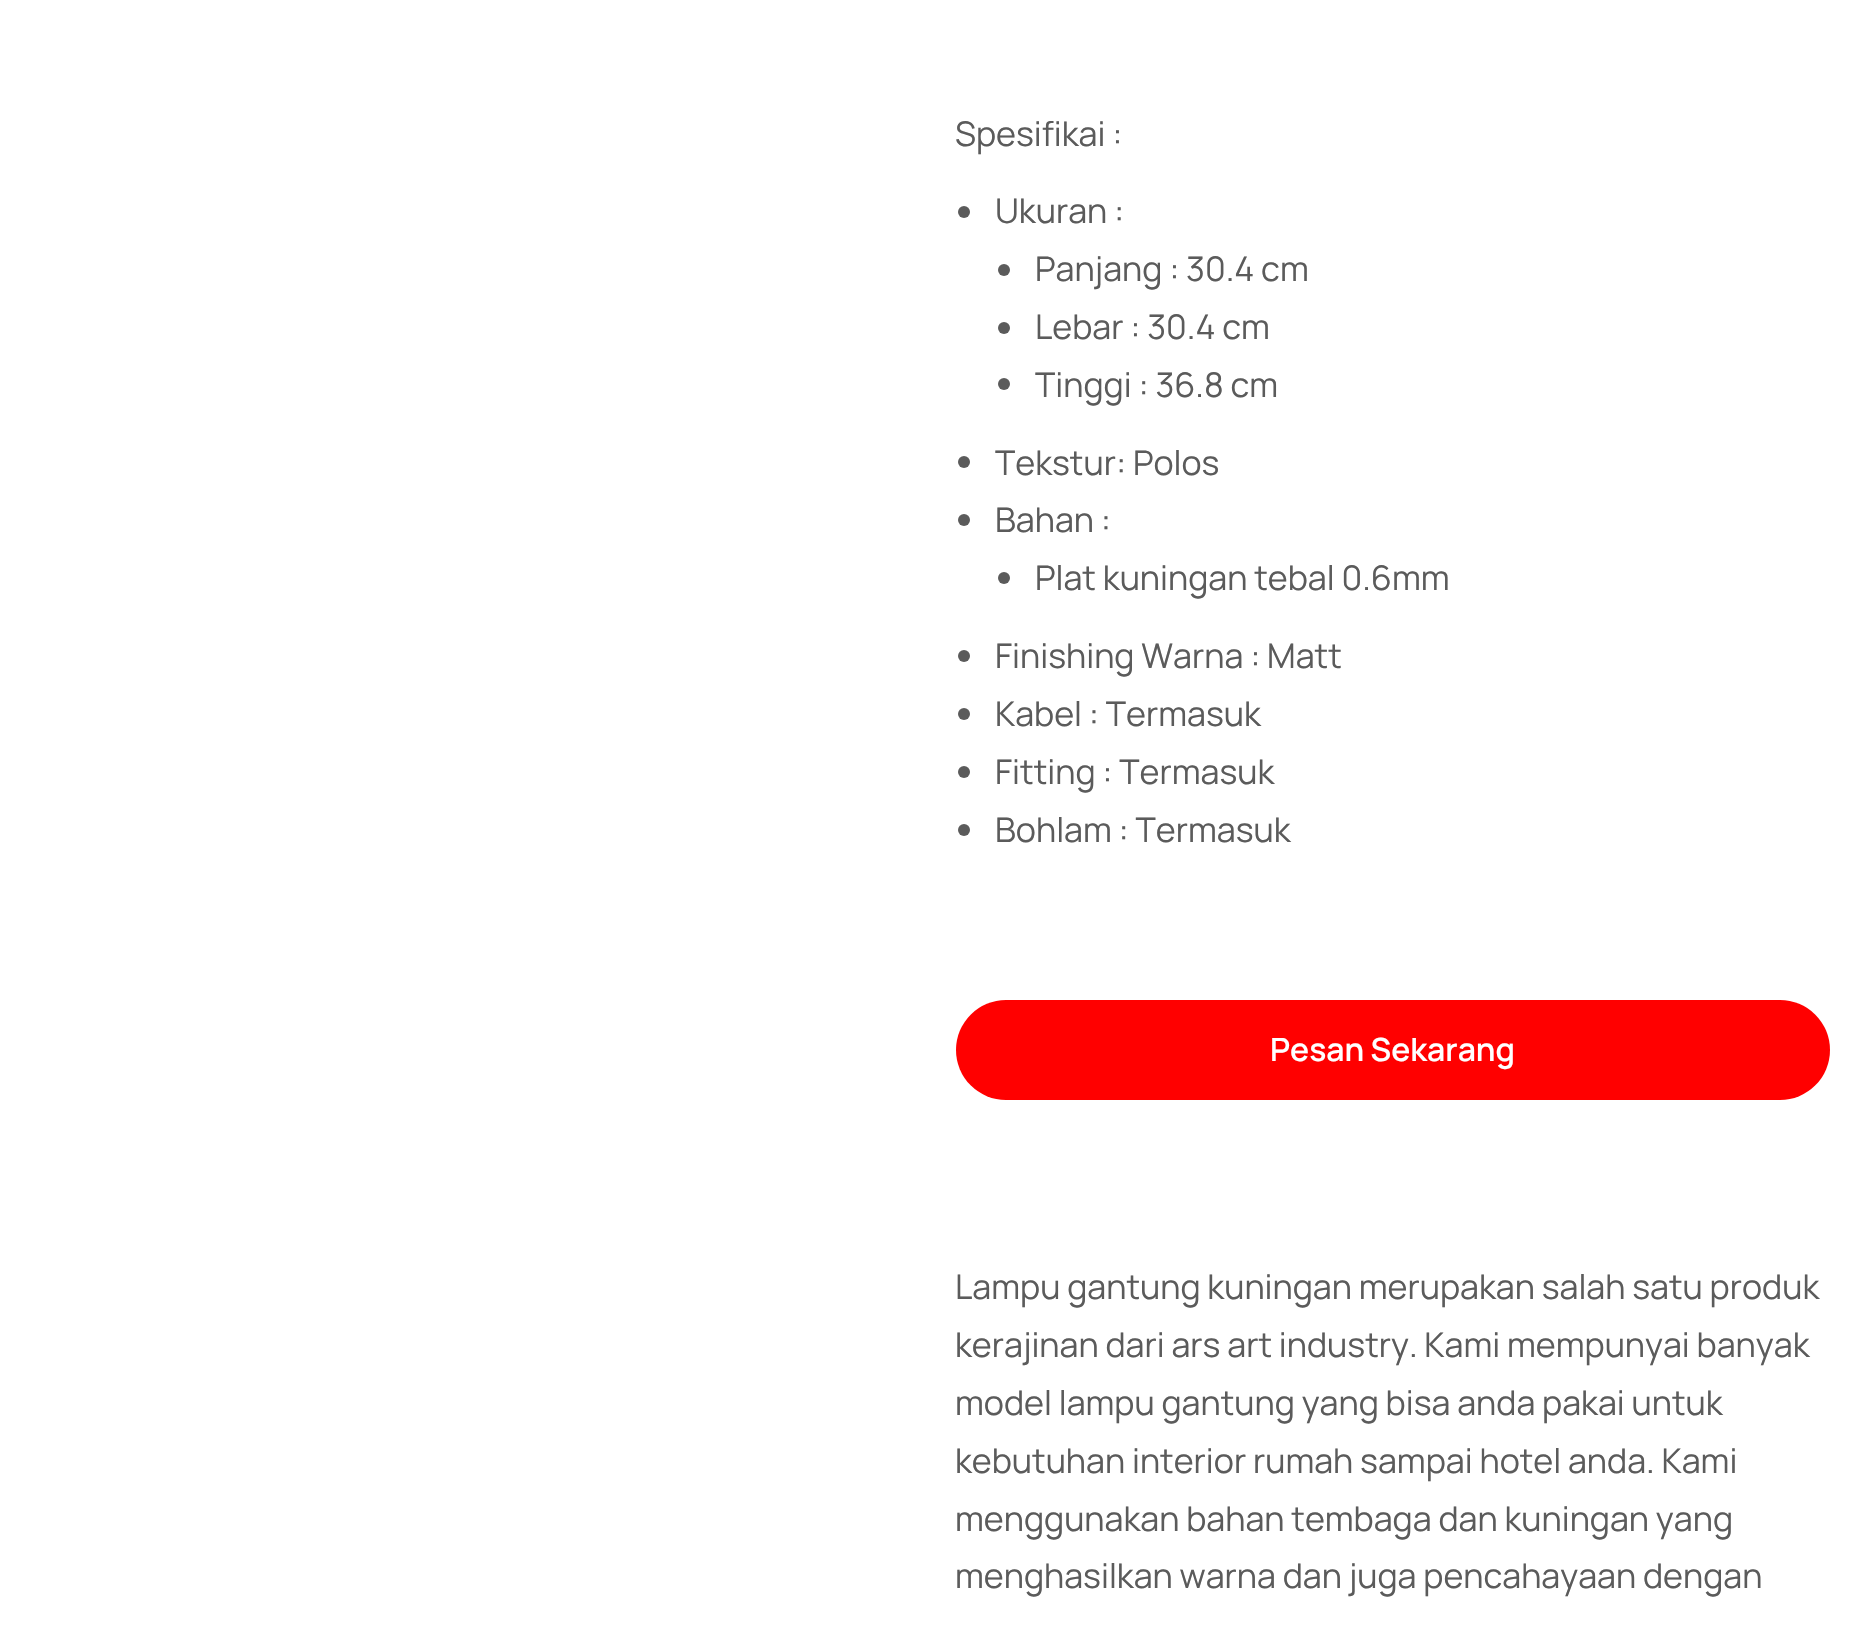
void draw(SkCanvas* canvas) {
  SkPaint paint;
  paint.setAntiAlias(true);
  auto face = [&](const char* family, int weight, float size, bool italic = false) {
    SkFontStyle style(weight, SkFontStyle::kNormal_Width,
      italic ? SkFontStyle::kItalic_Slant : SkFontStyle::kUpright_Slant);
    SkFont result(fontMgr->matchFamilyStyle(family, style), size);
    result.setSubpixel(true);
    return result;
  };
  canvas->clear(0xffffffff);
  paint.setColor(0xff5b5b5b);
  canvas->drawCircle(964, 212, 6, paint);
  canvas->drawCircle(1004, 270, 6, paint);
  canvas->drawCircle(1004, 328, 6, paint);
  canvas->drawCircle(1004, 384, 6, paint);
  canvas->drawCircle(964, 462, 6, paint);
  canvas->drawCircle(964, 520, 6, paint);
  canvas->drawCircle(1004, 578, 6, paint);
  canvas->drawCircle(964, 656, 6, paint);
  canvas->drawCircle(964, 714, 6, paint);
  canvas->drawCircle(964, 772, 6, paint);
  canvas->drawCircle(964, 830, 6, paint);
  paint.setColor(0xffff0000);
  canvas->drawRoundRect(SkRect::MakeXYWH(956, 1000, 874, 100), 50, 50, paint);
  auto f0 = face("Manrope", 400, 34);
  paint.setColor(0xff5b5b5b);
  {
    const struct { const char* s; float x, y; } items[] = {
      {"Spesifikai :", 955, 146},
      {"Ukuran :", 995, 223},
      {"Panjang : 30.4 cm", 1035, 281},
      {"Lebar : 30.4 cm", 1035, 339},
      {"Tinggi : 36.8 cm", 1035, 397},
      {"Tekstur: Polos", 995, 475},
      {"Bahan :", 995, 532},
      {"Plat kuningan tebal 0.6mm", 1035, 590},
      {"Finishing Warna : Matt", 995, 668},
      {"Kabel : Termasuk", 995, 726},
      {"Fitting : Termasuk", 995, 784},
      {"Bohlam : Termasuk", 995, 842},
    };
    for (auto [s, x, y] : items) {
      canvas->drawString(s, x, y, f0, paint);
    }
  }
  auto f1 = face("Manrope", 600, 32);
  paint.setColor(0xffffffff);
  canvas->drawString("Pesan Sekarang", 1270, 1061, f1, paint);
  paint.setColor(0xff5b5b5b);
  {
    const struct { const char* s; float x, y; } items[] = {
      {"Lampu gantung kuningan merupakan salah satu produk", 955, 1299},
      {"kerajinan dari ars art industry. Kami mempunyai banyak", 955, 1357},
      {"model lampu gantung yang bisa anda pakai untuk", 955, 1415},
      {"kebutuhan interior rumah sampai hotel anda. Kami", 955, 1473},
      {"menggunakan bahan tembaga dan kuningan yang", 955, 1531},
      {"menghasilkan warna dan juga pencahayaan dengan", 955, 1588},
    };
    for (auto [s, x, y] : items) {
      canvas->drawString(s, x, y, f0, paint);
    }
  }
}
